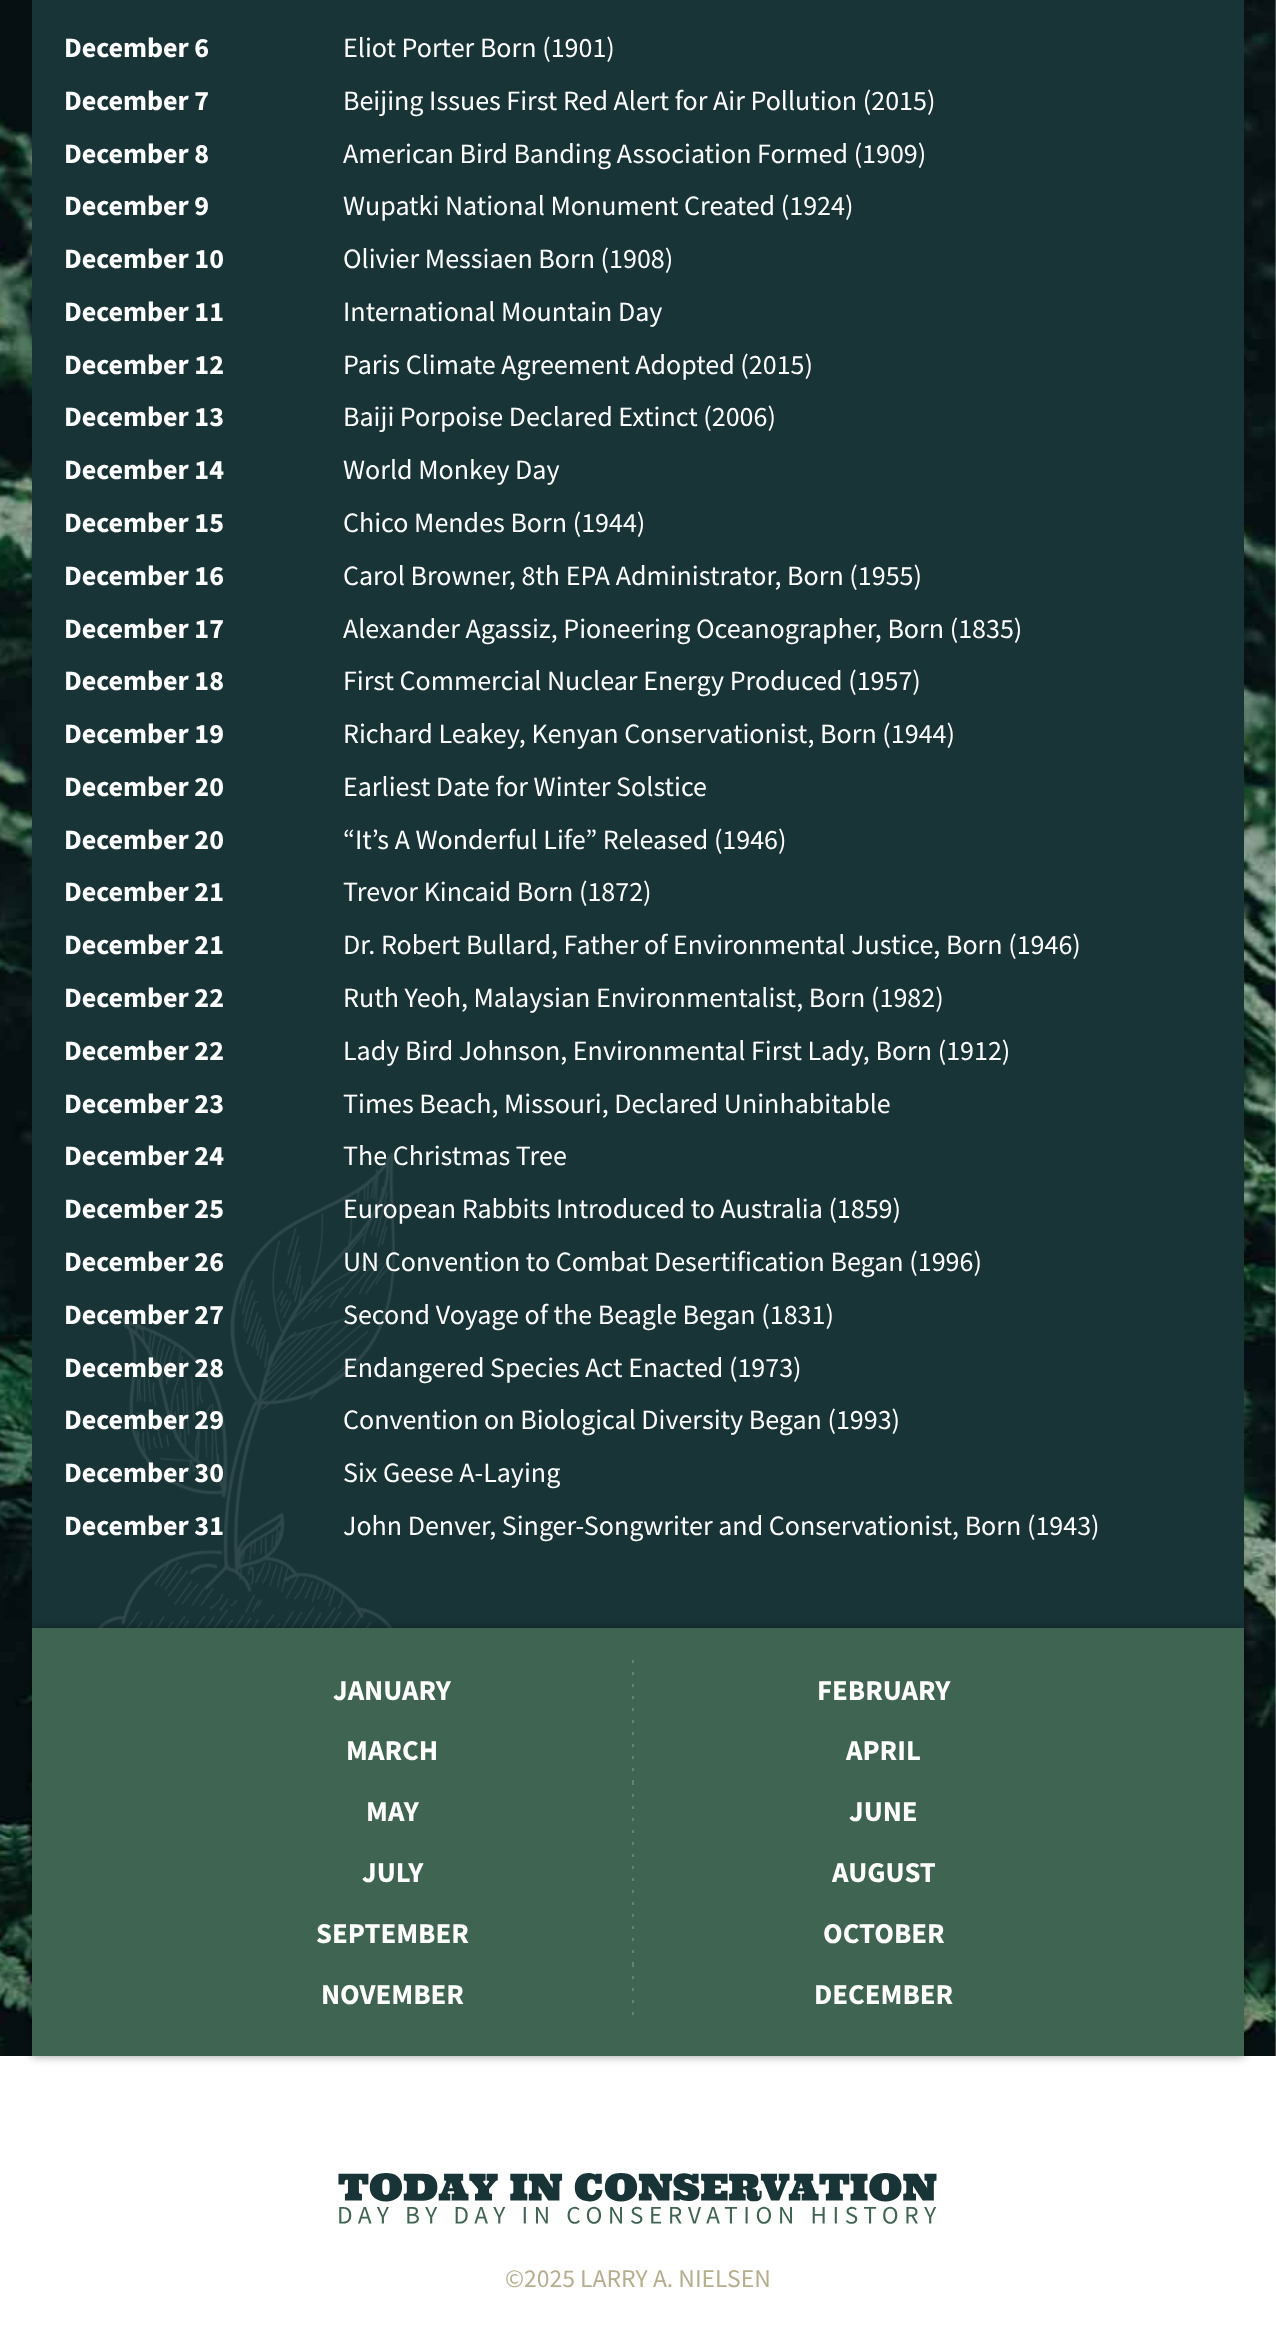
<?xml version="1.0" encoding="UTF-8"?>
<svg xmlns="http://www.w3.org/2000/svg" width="1276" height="2329">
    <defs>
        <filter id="blur1" x="-50%" y="-200%" width="200%" height="500%"><feGaussianBlur stdDeviation="5"/></filter>
    </defs>
    <rect width="100%" height="100%" fill="#FFFFFF"/>
    <image x="0" y="0" width="1276" height="2056" href="img_01.png"/>
    <rect x="32" y="0" width="1212" height="1628" fill="#183437"/>
    <image x="98" y="1152" width="297" height="476" href="img_02.png"/>
    <text x="64" y="57" font-family="Source Sans Pro" font-size="28" font-weight="700" fill="#FFFFFF">December 6</text>
    <text x="343" y="57" font-family="Source Sans Pro" font-size="28" fill="#FFFFFF">Eliot Porter Born (1901)</text>
    <text x="64" y="110" font-family="Source Sans Pro" font-size="28" font-weight="700" fill="#FFFFFF">December 7</text>
    <text x="343" y="110" font-family="Source Sans Pro" font-size="28" fill="#FFFFFF">Beijing Issues First Red Alert for Air Pollution (2015)</text>
    <text x="64" y="163" font-family="Source Sans Pro" font-size="28" font-weight="700" fill="#FFFFFF">December 8</text>
    <text x="343" y="163" font-family="Source Sans Pro" font-size="28" fill="#FFFFFF">American Bird Banding Association Formed (1909)</text>
    <text x="64" y="215" font-family="Source Sans Pro" font-size="28" font-weight="700" fill="#FFFFFF">December 9</text>
    <text x="343" y="215" font-family="Source Sans Pro" font-size="28" fill="#FFFFFF">Wupatki National Monument Created (1924)</text>
    <text x="64" y="268" font-family="Source Sans Pro" font-size="28" font-weight="700" fill="#FFFFFF">December 10</text>
    <text x="343" y="268" font-family="Source Sans Pro" font-size="28" fill="#FFFFFF">Olivier Messiaen Born (1908)</text>
    <text x="64" y="321" font-family="Source Sans Pro" font-size="28" font-weight="700" fill="#FFFFFF">December 11</text>
    <text x="343" y="321" font-family="Source Sans Pro" font-size="28" fill="#FFFFFF">International Mountain Day</text>
    <text x="64" y="374" font-family="Source Sans Pro" font-size="28" font-weight="700" fill="#FFFFFF">December 12</text>
    <text x="343" y="374" font-family="Source Sans Pro" font-size="28" fill="#FFFFFF">Paris Climate Agreement Adopted (2015)</text>
    <text x="64" y="426" font-family="Source Sans Pro" font-size="28" font-weight="700" fill="#FFFFFF">December 13</text>
    <text x="343" y="426" font-family="Source Sans Pro" font-size="28" fill="#FFFFFF">Baiji Porpoise Declared Extinct (2006)</text>
    <text x="64" y="479" font-family="Source Sans Pro" font-size="28" font-weight="700" fill="#FFFFFF">December 14</text>
    <text x="343" y="479" font-family="Source Sans Pro" font-size="28" fill="#FFFFFF">World Monkey Day</text>
    <text x="64" y="532" font-family="Source Sans Pro" font-size="28" font-weight="700" fill="#FFFFFF">December 15</text>
    <text x="343" y="532" font-family="Source Sans Pro" font-size="28" fill="#FFFFFF">Chico Mendes Born (1944)</text>
    <text x="64" y="585" font-family="Source Sans Pro" font-size="28" font-weight="700" fill="#FFFFFF">December 16</text>
    <text x="343" y="585" font-family="Source Sans Pro" font-size="28" fill="#FFFFFF">Carol Browner, 8th EPA Administrator, Born (1955)</text>
    <text x="64" y="638" font-family="Source Sans Pro" font-size="28" font-weight="700" fill="#FFFFFF">December 17</text>
    <text x="343" y="638" font-family="Source Sans Pro" font-size="28" fill="#FFFFFF">Alexander Agassiz, Pioneering Oceanographer, Born (1835)</text>
    <text x="64" y="690" font-family="Source Sans Pro" font-size="28" font-weight="700" fill="#FFFFFF">December 18</text>
    <text x="343" y="690" font-family="Source Sans Pro" font-size="28" fill="#FFFFFF">First Commercial Nuclear Energy Produced (1957)</text>
    <text x="64" y="743" font-family="Source Sans Pro" font-size="28" font-weight="700" fill="#FFFFFF">December 19</text>
    <text x="343" y="743" font-family="Source Sans Pro" font-size="28" fill="#FFFFFF">Richard Leakey, Kenyan Conservationist, Born (1944)</text>
    <text x="64" y="796" font-family="Source Sans Pro" font-size="28" font-weight="700" fill="#FFFFFF">December 20</text>
    <text x="343" y="796" font-family="Source Sans Pro" font-size="28" fill="#FFFFFF">Earliest Date for Winter Solstice</text>
    <text x="64" y="849" font-family="Source Sans Pro" font-size="28" font-weight="700" fill="#FFFFFF">December 20</text>
    <text x="343" y="849" font-family="Source Sans Pro" font-size="28" fill="#FFFFFF">“It’s A Wonderful Life” Released (1946)</text>
    <text x="64" y="901" font-family="Source Sans Pro" font-size="28" font-weight="700" fill="#FFFFFF">December 21</text>
    <text x="343" y="901" font-family="Source Sans Pro" font-size="28" fill="#FFFFFF">Trevor Kincaid Born (1872)</text>
    <text x="64" y="954" font-family="Source Sans Pro" font-size="28" font-weight="700" fill="#FFFFFF">December 21</text>
    <text x="343" y="954" font-family="Source Sans Pro" font-size="28" fill="#FFFFFF">Dr. Robert Bullard, Father of Environmental Justice, Born (1946)</text>
    <text x="64" y="1007" font-family="Source Sans Pro" font-size="28" font-weight="700" fill="#FFFFFF">December 22</text>
    <text x="343" y="1007" font-family="Source Sans Pro" font-size="28" fill="#FFFFFF">Ruth Yeoh, Malaysian Environmentalist, Born (1982)</text>
    <text x="64" y="1060" font-family="Source Sans Pro" font-size="28" font-weight="700" fill="#FFFFFF">December 22</text>
    <text x="343" y="1060" font-family="Source Sans Pro" font-size="28" fill="#FFFFFF">Lady Bird Johnson, Environmental First Lady, Born (1912)</text>
    <text x="64" y="1113" font-family="Source Sans Pro" font-size="28" font-weight="700" fill="#FFFFFF">December 23</text>
    <text x="343" y="1113" font-family="Source Sans Pro" font-size="28" fill="#FFFFFF">Times Beach, Missouri, Declared Uninhabitable</text>
    <text x="64" y="1165" font-family="Source Sans Pro" font-size="28" font-weight="700" fill="#FFFFFF">December 24</text>
    <text x="343" y="1165" font-family="Source Sans Pro" font-size="28" fill="#FFFFFF">The Christmas Tree</text>
    <text x="64" y="1218" font-family="Source Sans Pro" font-size="28" font-weight="700" fill="#FFFFFF">December 25</text>
    <text x="343" y="1218" font-family="Source Sans Pro" font-size="28" fill="#FFFFFF">European Rabbits Introduced to Australia (1859)</text>
    <text x="64" y="1271" font-family="Source Sans Pro" font-size="28" font-weight="700" fill="#FFFFFF">December 26</text>
    <text x="343" y="1271" font-family="Source Sans Pro" font-size="28" fill="#FFFFFF">UN Convention to Combat Desertification Began (1996)</text>
    <text x="64" y="1324" font-family="Source Sans Pro" font-size="28" font-weight="700" fill="#FFFFFF">December 27</text>
    <text x="343" y="1324" font-family="Source Sans Pro" font-size="28" fill="#FFFFFF">Second Voyage of the Beagle Began (1831)</text>
    <text x="64" y="1377" font-family="Source Sans Pro" font-size="28" font-weight="700" fill="#FFFFFF">December 28</text>
    <text x="343" y="1377" font-family="Source Sans Pro" font-size="28" fill="#FFFFFF">Endangered Species Act Enacted (1973)</text>
    <text x="64" y="1429" font-family="Source Sans Pro" font-size="28" font-weight="700" fill="#FFFFFF">December 29</text>
    <text x="343" y="1429" font-family="Source Sans Pro" font-size="28" fill="#FFFFFF">Convention on Biological Diversity Began (1993)</text>
    <text x="64" y="1482" font-family="Source Sans Pro" font-size="28" font-weight="700" fill="#FFFFFF">December 30</text>
    <text x="343" y="1482" font-family="Source Sans Pro" font-size="28" fill="#FFFFFF">Six Geese A-Laying</text>
    <text x="64" y="1535" font-family="Source Sans Pro" font-size="28" font-weight="700" fill="#FFFFFF">December 31</text>
    <text x="343" y="1535" font-family="Source Sans Pro" font-size="28" fill="#FFFFFF">John Denver, Singer-Songwriter and Conservationist, Born (1943)</text>
    <rect x="32" y="1628" width="1212" height="428" fill="#000000" fill-opacity="0.4" filter="url(#blur1)"/>
    <rect x="32" y="1628" width="1212" height="428" fill="#3F6552"/>
    <image x="632" y="1660" width="2" height="51" href="img_03.png"/>
    <text x="333" y="1700" font-family="Source Sans Pro" font-size="28.75" font-weight="700" fill="#FFFFFF">JANUARY</text>
    <text x="817" y="1700" font-family="Source Sans Pro" font-size="28.75" font-weight="700" fill="#FFFFFF">FEBRUARY</text>
    <image x="632" y="1720" width="2" height="62" href="img_04.png"/>
    <text x="346" y="1760" font-family="Source Sans Pro" font-size="28.75" font-weight="700" fill="#FFFFFF">MARCH</text>
    <text x="846" y="1760" font-family="Source Sans Pro" font-size="28.75" font-weight="700" fill="#FFFFFF">APRIL</text>
    <image x="632" y="1782" width="2" height="51" href="img_03.png"/>
    <text x="366" y="1821" font-family="Source Sans Pro" font-size="28.75" font-weight="700" fill="#FFFFFF">MAY</text>
    <text x="849" y="1821" font-family="Source Sans Pro" font-size="28.75" font-weight="700" fill="#FFFFFF">JUNE</text>
    <image x="632" y="1842" width="2" height="51" href="img_03.png"/>
    <text x="362" y="1882" font-family="Source Sans Pro" font-size="28.75" font-weight="700" fill="#FFFFFF">JULY</text>
    <text x="832" y="1882" font-family="Source Sans Pro" font-size="28.75" font-weight="700" fill="#FFFFFF">AUGUST</text>
    <image x="632" y="1902" width="2" height="62" href="img_04.png"/>
    <text x="316" y="1943" font-family="Source Sans Pro" font-size="28.75" font-weight="700" fill="#FFFFFF">SEPTEMBER</text>
    <text x="823" y="1943" font-family="Source Sans Pro" font-size="28.75" font-weight="700" fill="#FFFFFF">OCTOBER</text>
    <image x="632" y="1964" width="2" height="51" href="img_03.png"/>
    <text x="321" y="2004" font-family="Source Sans Pro" font-size="28.75" font-weight="700" fill="#FFFFFF">NOVEMBER</text>
    <text x="814" y="2004" font-family="Source Sans Pro" font-size="28.75" font-weight="700" fill="#FFFFFF">DECEMBER</text>
    <image x="338" y="2173" width="599" height="51" href="img_05.png"/>
    <text x="505" y="2287" font-family="Source Sans Pro" font-size="25.6" fill="#B6AE8E">©2025 LARRY A. NIELSEN</text>
</svg>
